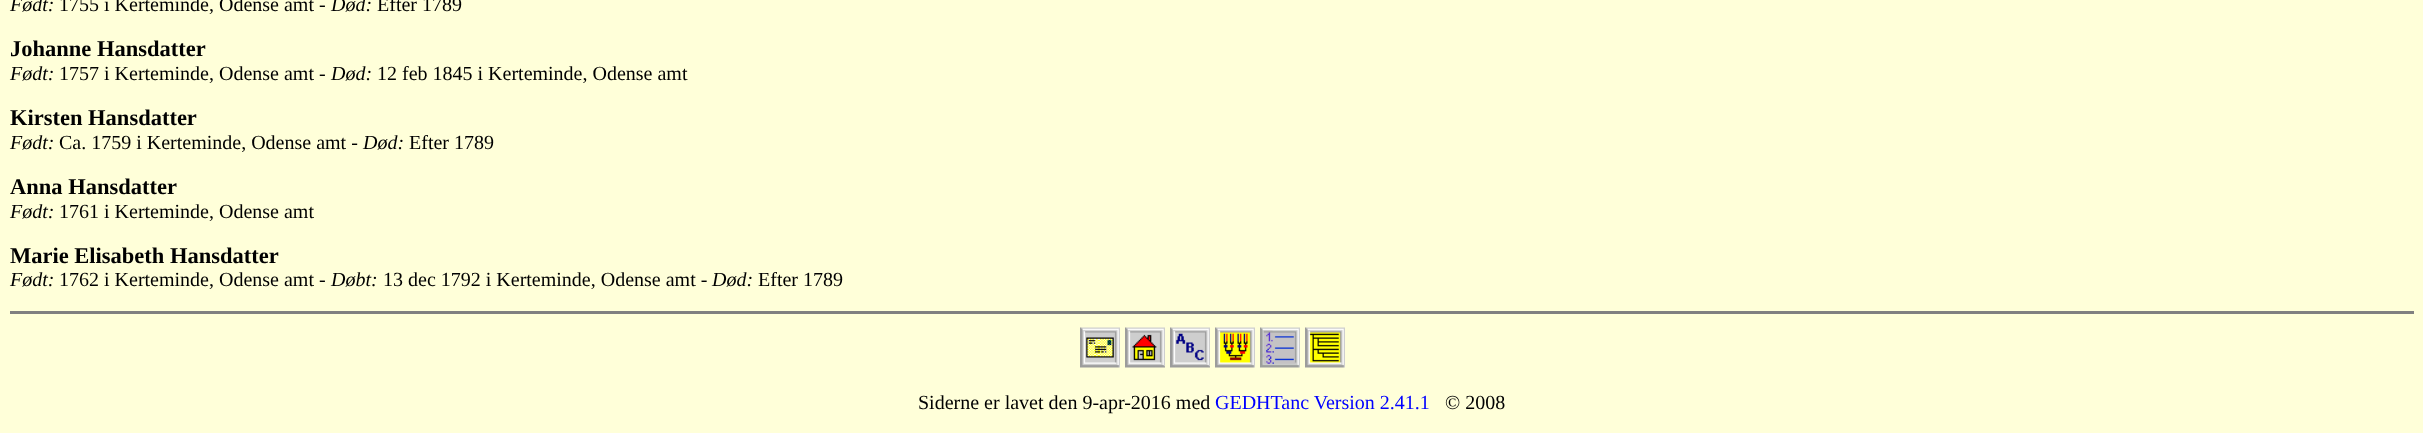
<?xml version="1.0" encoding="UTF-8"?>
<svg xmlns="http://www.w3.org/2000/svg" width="2423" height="433">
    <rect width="100%" height="100%" fill="#FFFFD9"/>
    <text x="10" y="11" font-family="Liberation Serif" font-size="20" font-style="italic" fill="#000000">Født:</text>
    <text x="59" y="11" font-family="Liberation Serif" font-size="20" fill="#000000">1755 i Kerteminde, Odense amt -</text>
    <text x="331" y="11" font-family="Liberation Serif" font-size="20" font-style="italic" fill="#000000">Død:</text>
    <text x="377" y="11" font-family="Liberation Serif" font-size="20" fill="#000000">Efter 1789</text>
    <text x="10" y="56" font-family="Liberation Serif" font-size="22.5" font-weight="700" fill="#000000">Johanne Hansdatter</text>
    <text x="10" y="80" font-family="Liberation Serif" font-size="20" font-style="italic" fill="#000000">Født:</text>
    <text x="59" y="80" font-family="Liberation Serif" font-size="20" fill="#000000">1757 i Kerteminde, Odense amt -</text>
    <text x="331" y="80" font-family="Liberation Serif" font-size="20" font-style="italic" fill="#000000">Død:</text>
    <text x="377" y="80" font-family="Liberation Serif" font-size="20" fill="#000000">12 feb 1845 i Kerteminde, Odense amt</text>
    <text x="10" y="125" font-family="Liberation Serif" font-size="22.5" font-weight="700" fill="#000000">Kirsten Hansdatter</text>
    <text x="10" y="149" font-family="Liberation Serif" font-size="20" font-style="italic" fill="#000000">Født:</text>
    <text x="59" y="149" font-family="Liberation Serif" font-size="20" fill="#000000">Ca. 1759 i Kerteminde, Odense amt -</text>
    <text x="363" y="149" font-family="Liberation Serif" font-size="20" font-style="italic" fill="#000000">Død:</text>
    <text x="409" y="149" font-family="Liberation Serif" font-size="20" fill="#000000">Efter 1789</text>
    <text x="10" y="194" font-family="Liberation Serif" font-size="22.5" font-weight="700" fill="#000000">Anna Hansdatter</text>
    <text x="10" y="218" font-family="Liberation Serif" font-size="20" font-style="italic" fill="#000000">Født:</text>
    <text x="59" y="218" font-family="Liberation Serif" font-size="20" fill="#000000">1761 i Kerteminde, Odense amt</text>
    <text x="10" y="263" font-family="Liberation Serif" font-size="22.5" font-weight="700" fill="#000000">Marie Elisabeth Hansdatter</text>
    <text x="10" y="286" font-family="Liberation Serif" font-size="20" font-style="italic" fill="#000000">Født:</text>
    <text x="59" y="286" font-family="Liberation Serif" font-size="20" fill="#000000">1762 i Kerteminde, Odense amt -</text>
    <text x="331" y="286" font-family="Liberation Serif" font-size="20" font-style="italic" fill="#000000">Døbt:</text>
    <text x="383" y="286" font-family="Liberation Serif" font-size="20" fill="#000000">13 dec 1792 i Kerteminde, Odense amt -</text>
    <text x="712" y="286" font-family="Liberation Serif" font-size="20" font-style="italic" fill="#000000">Død:</text>
    <text x="758" y="286" font-family="Liberation Serif" font-size="20" fill="#000000">Efter 1789</text>
    <rect x="10" y="311" width="2404" height="3" fill="#808080"/>
    <image x="1080" y="327" width="40" height="41" href="img_01.png"/>
    <image x="1125" y="327" width="40" height="41" href="img_02.png"/>
    <image x="1170" y="327" width="40" height="41" href="img_03.png"/>
    <image x="1215" y="327" width="40" height="41" href="img_04.png"/>
    <image x="1260" y="327" width="40" height="41" href="img_05.png"/>
    <image x="1305" y="327" width="40" height="41" href="img_06.png"/>
    <text x="918" y="409" font-family="Liberation Serif" font-size="20" fill="#000000">Siderne er lavet den 9-apr-2016 med</text>
    <text x="1215" y="409" font-family="Liberation Serif" font-size="20" fill="#0000FF">GEDHTanc Version 2.41.1</text>
    <text x="1445" y="409" font-family="Liberation Serif" font-size="20" fill="#000000">© 2008</text>
</svg>
